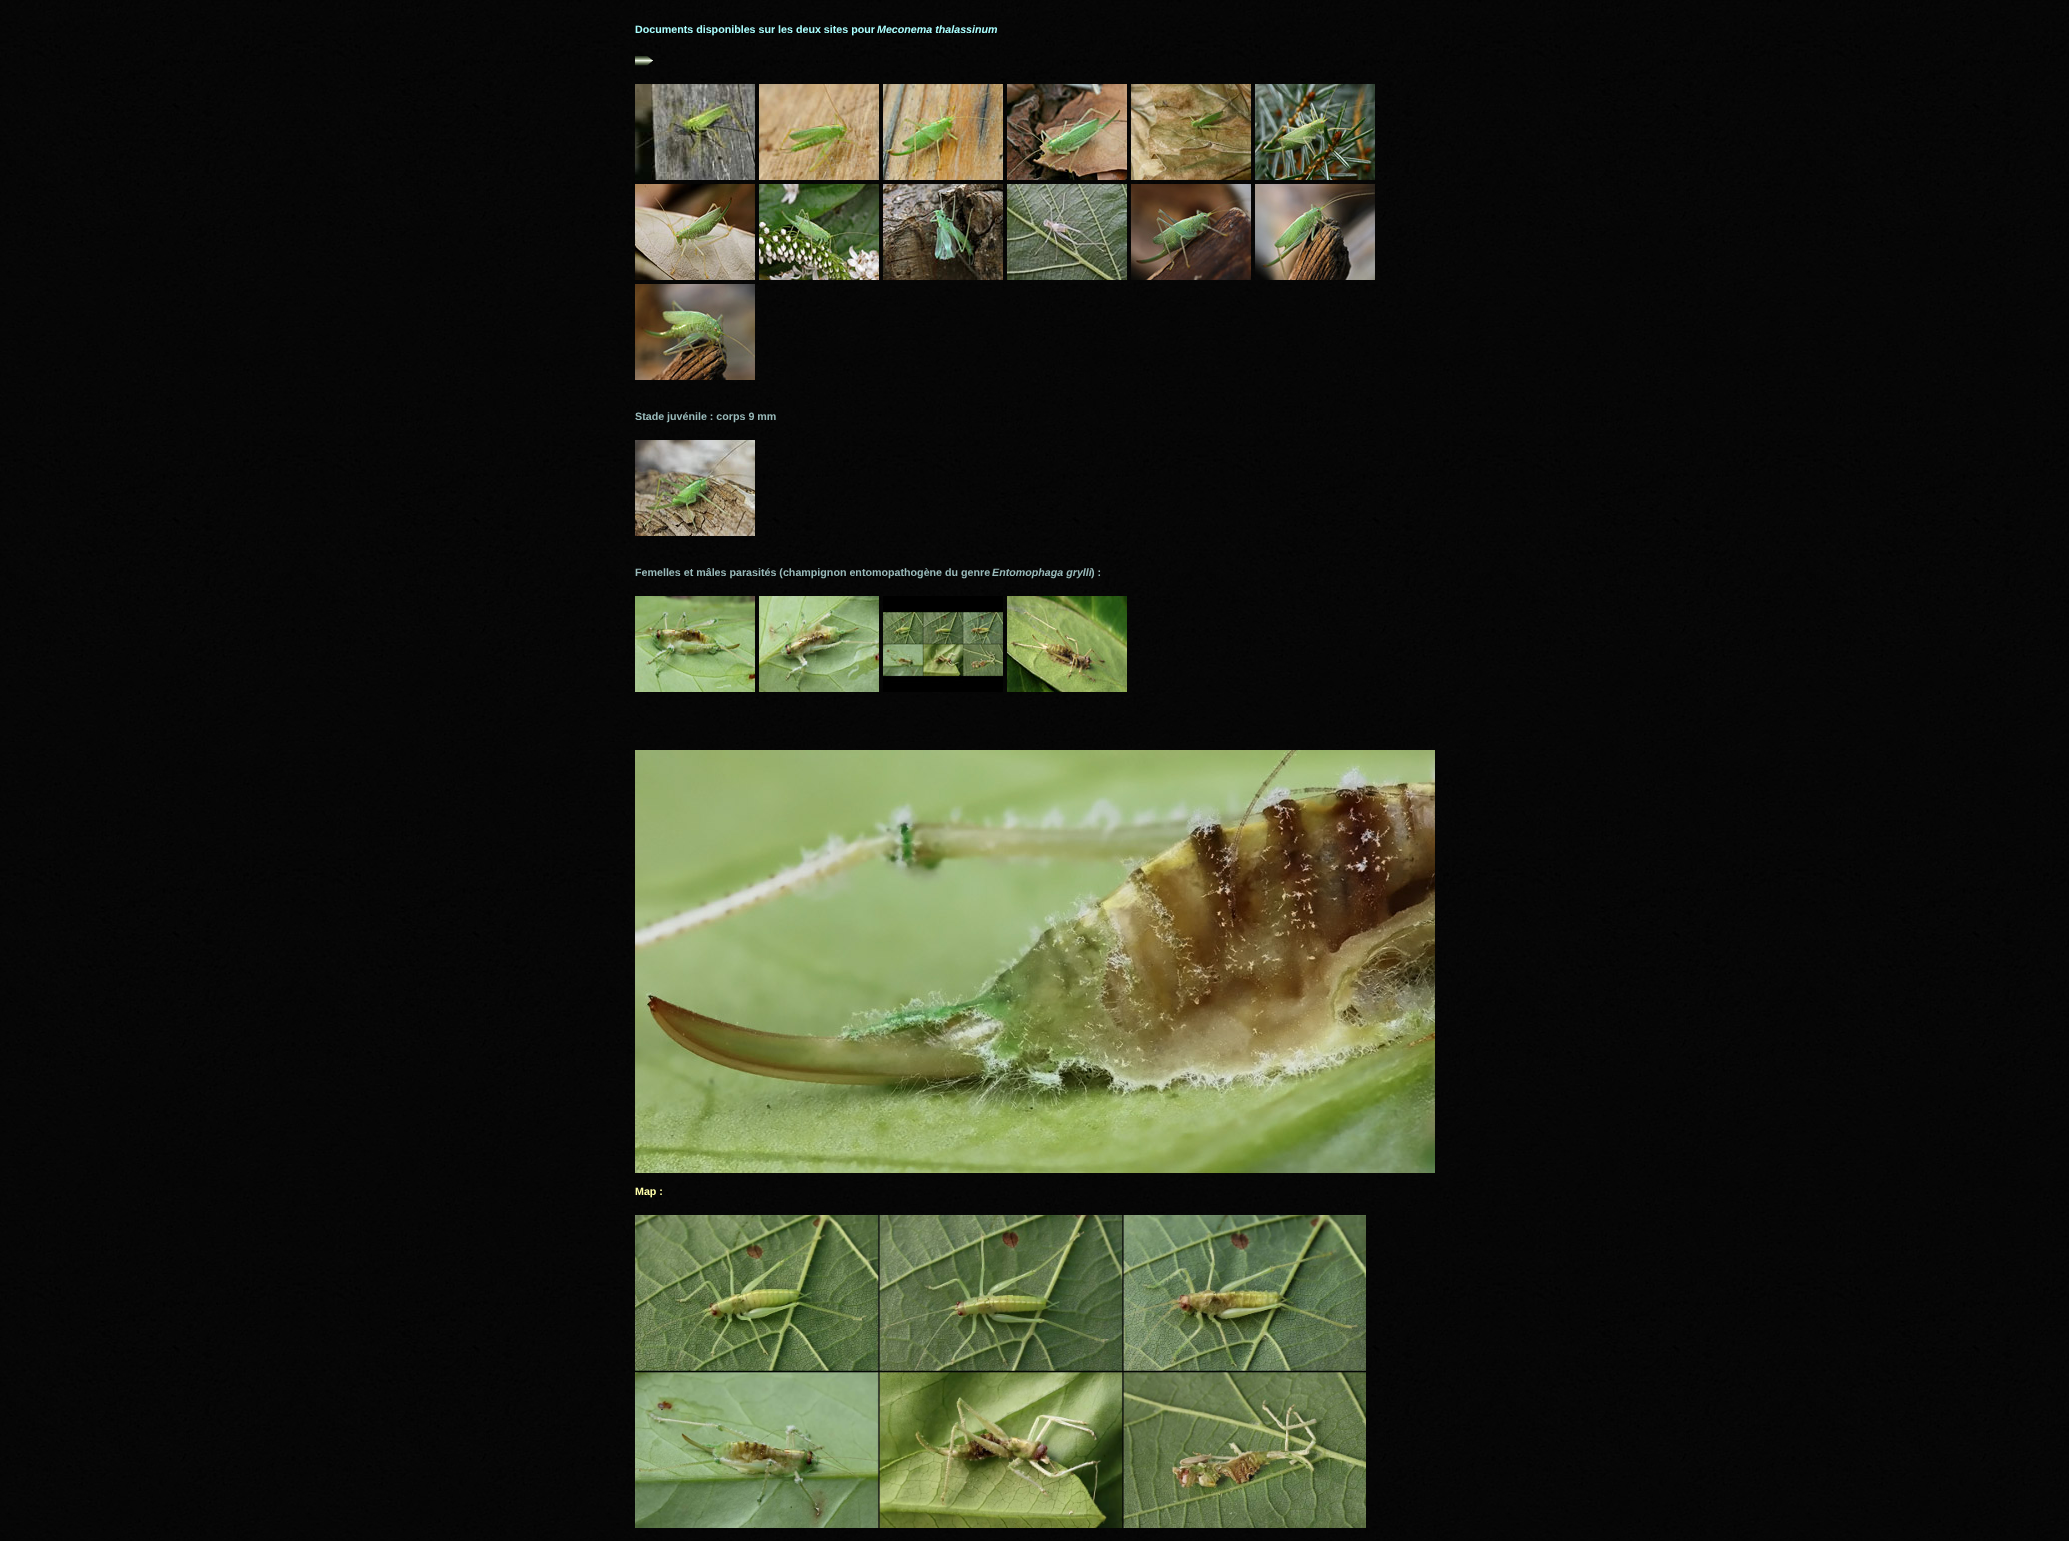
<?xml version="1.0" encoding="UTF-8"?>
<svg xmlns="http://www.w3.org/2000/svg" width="2069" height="1541">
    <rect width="100%" height="100%" fill="#FFFFFF"/>
    <image x="0" y="0" width="2069" height="1541" href="img_01.png"/>
    <text x="635" y="33" font-family="Liberation Sans" font-size="10.7" font-weight="700" fill="#AAFFFF">Documents disponibles sur les deux sites pour</text>
    <text x="877" y="33" font-family="Liberation Sans" font-size="10.7" font-weight="700" font-style="italic" fill="#AAFFFF">Meconema thalassinum</text>
    <image x="635" y="56" width="18" height="10" href="img_02.png"/>
    <image x="635" y="84" width="120" height="96" href="img_03.png"/>
    <image x="759" y="84" width="120" height="96" href="img_04.png"/>
    <image x="883" y="84" width="120" height="96" href="img_05.png"/>
    <image x="1007" y="84" width="120" height="96" href="img_06.png"/>
    <image x="1131" y="84" width="120" height="96" href="img_07.png"/>
    <image x="1255" y="84" width="120" height="96" href="img_08.png"/>
    <image x="635" y="184" width="120" height="96" href="img_09.png"/>
    <image x="759" y="184" width="120" height="96" href="img_10.png"/>
    <image x="883" y="184" width="120" height="96" href="img_11.png"/>
    <image x="1007" y="184" width="120" height="96" href="img_12.png"/>
    <image x="1131" y="184" width="120" height="96" href="img_13.png"/>
    <image x="1255" y="184" width="120" height="96" href="img_14.png"/>
    <image x="635" y="284" width="120" height="96" href="img_15.png"/>
    <text x="635" y="420" font-family="Liberation Sans" font-size="10.7" font-weight="700" fill="#9ABBBB">Stade juvénile : corps 9 mm</text>
    <image x="635" y="440" width="120" height="96" href="img_16.png"/>
    <text x="635" y="576" font-family="Liberation Sans" font-size="10.7" font-weight="700" fill="#9ABBBB">Femelles et mâles parasités (champignon entomopathogène du genre</text>
    <text x="992" y="576" font-family="Liberation Sans" font-size="10.7" font-weight="700" font-style="italic" fill="#9ABBBB">Entomophaga grylli</text>
    <text x="1091" y="576" font-family="Liberation Sans" font-size="10.7" font-weight="700" fill="#9ABBBB">) :</text>
    <image x="635" y="596" width="120" height="96" href="img_17.png"/>
    <image x="759" y="596" width="120" height="96" href="img_18.png"/>
    <image x="883" y="596" width="120" height="96" href="img_19.png"/>
    <image x="1007" y="596" width="120" height="96" href="img_20.png"/>
    <image x="635" y="750" width="800" height="423" href="img_21.png"/>
    <text x="635" y="1195" font-family="Liberation Sans" font-size="10.7" font-weight="700" fill="#FFFFAA">Map :</text>
    <image x="635" y="1215" width="731" height="313" href="img_22.png"/>
</svg>
